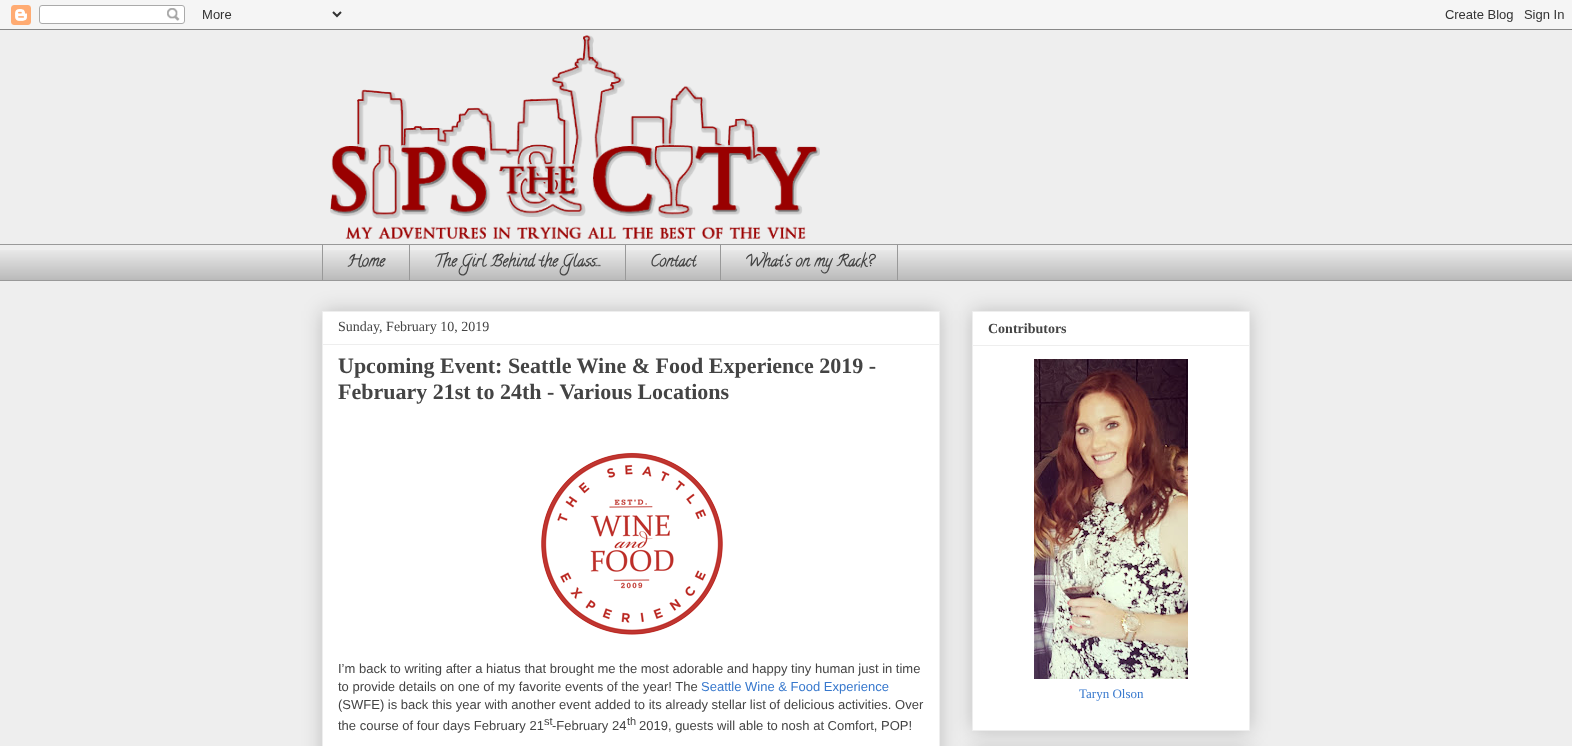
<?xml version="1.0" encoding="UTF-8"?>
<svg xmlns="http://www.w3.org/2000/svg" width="1572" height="746">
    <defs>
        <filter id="blur1" x="-50%" y="-200%" width="200%" height="500%"><feGaussianBlur stdDeviation="10"/></filter>
    </defs>
    <rect width="100%" height="100%" fill="#EEEEEE"/>
    <image x="0" y="0" width="1572" height="30" href="img_01.png"/>
    <image x="330" y="35" width="490" height="204" href="img_02.png"/>
    <image x="0" y="250" width="1572" height="30" href="img_03.png"/>
    <rect x="0" y="244" width="1572" height="1" fill="#999999"/>
    <rect x="322" y="244" width="1" height="37" fill="#999999"/>
    <text x="347" y="266" font-family="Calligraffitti" font-size="16" font-weight="700" fill="#444444">Home</text>
    <rect x="409" y="244" width="1" height="37" fill="#999999"/>
    <text x="434" y="266" font-family="Calligraffitti" font-size="16" font-weight="700" fill="#444444">The Girl Behind the Glass...</text>
    <rect x="625" y="244" width="1" height="37" fill="#999999"/>
    <text x="650" y="266" font-family="Calligraffitti" font-size="16" font-weight="700" fill="#444444">Contact</text>
    <rect x="720.5" y="244.5" width="177" height="36" fill="none" stroke="#999999"/>
    <text x="745" y="266" font-family="Calligraffitti" font-size="16" font-weight="700" fill="#444444">What's on my Rack?</text>
    <rect x="0" y="280" width="1572" height="1" fill="#999999"/>
    <rect x="322" y="311" width="618" height="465" fill="#000000" fill-opacity="0.2" filter="url(#blur1)"/>
    <rect x="322.5" y="311.5" width="617" height="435" fill="#FFFFFF" stroke="#EEEEEE"/>
    <text x="338" y="331" font-family="Liberation Serif" font-size="14" fill="#444444">Sunday, February 10, 2019</text>
    <rect x="323" y="344" width="616" height="1" fill="#EEEEEE"/>
    <text font-family="Liberation Serif" font-size="22" font-weight="700" fill="#444444">
        <tspan x="338" y="373">Upcoming Event: Seattle Wine &amp; Food Experience 2019 -</tspan>
        <tspan x="338" y="399">February 21st to 24th - Various Locations</tspan>
    </text>
    <image x="541" y="452" width="182" height="183" href="img_04.png"/>
    <text font-family="Liberation Sans" font-size="13" fill="#444444">
        <tspan x="338" y="673">I’m back to writing after a hiatus that brought me the most adorable and happy tiny human just in time</tspan>
        <tspan x="338" y="691">to provide details on one of my favorite events of the year! The</tspan>
    </text>
    <text x="701" y="691" font-family="Liberation Sans" font-size="13" fill="#3778CD">Seattle Wine &amp; Food Experience</text>
    <text font-family="Liberation Sans" font-size="13" fill="#444444">
        <tspan x="338" y="709">(SWFE) is back this year with another event added to its already stellar list of delicious activities. Over</tspan>
        <tspan x="338" y="730">the course of four days February 21</tspan>
    </text>
    <text x="544" y="725" font-family="Liberation Sans" font-size="11" fill="#444444">st</text>
    <text x="552" y="730" font-family="Liberation Sans" font-size="13" fill="#444444">-February 24</text>
    <text x="627" y="725" font-family="Liberation Sans" font-size="11" fill="#444444">th</text>
    <text x="639" y="730" font-family="Liberation Sans" font-size="13" fill="#444444">2019, guests will able to nosh at Comfort, POP!</text>
    <rect x="972" y="311" width="278" height="420" fill="#000000" fill-opacity="0.2" filter="url(#blur1)"/>
    <rect x="972.5" y="311.5" width="277" height="419" fill="#FFFFFF" stroke="#EEEEEE"/>
    <text x="988" y="333" font-family="Liberation Serif" font-size="14" font-weight="700" fill="#444444">Contributors</text>
    <rect x="973" y="345" width="276" height="1" fill="#EEEEEE"/>
    <image x="1034" y="359" width="154" height="320" href="img_05.png"/>
    <text x="1079" y="698" font-family="Liberation Serif" font-size="13" fill="#3778CD">Taryn Olson</text>
    <rect x="972" y="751" width="278" height="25" fill="#000000" fill-opacity="0.2" filter="url(#blur1)"/>
</svg>
